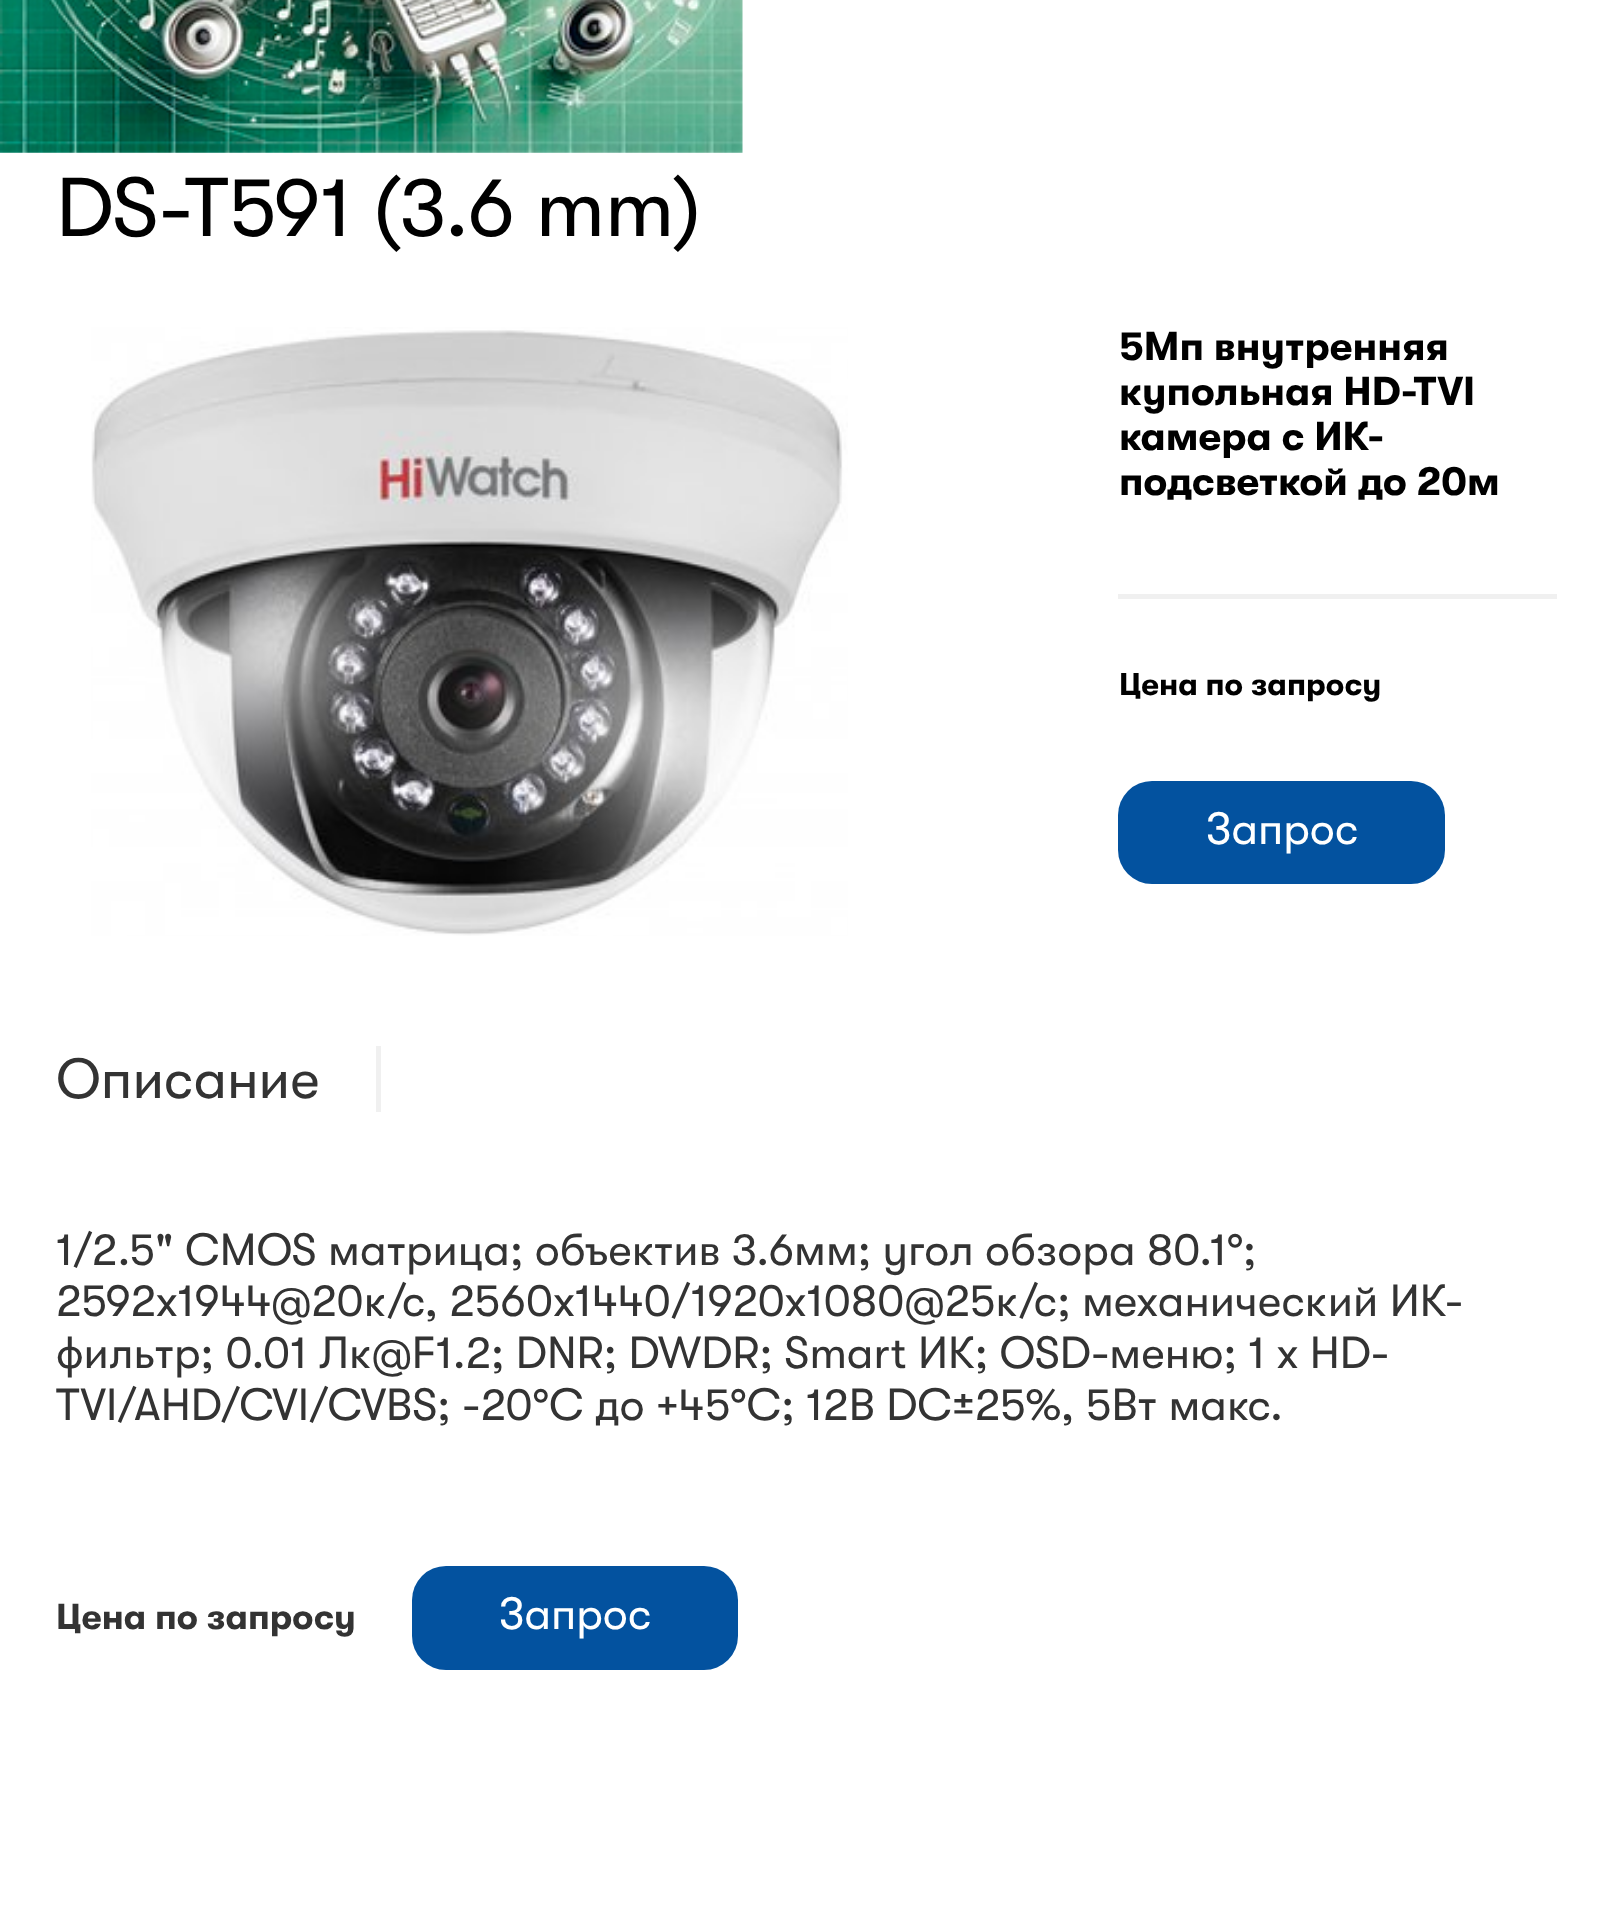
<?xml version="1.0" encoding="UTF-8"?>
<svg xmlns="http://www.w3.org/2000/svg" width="1613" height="1909">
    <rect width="100%" height="100%" fill="#FFFFFF"/>
    <image x="0" y="0" width="743" height="153" href="img_01.png"/>
    <text x="56" y="236" font-family="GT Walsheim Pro" font-size="83.25" fill="#000000">DS-T591 (3.6 mm)</text>
    <image x="91" y="327" width="757" height="609" href="img_02.png"/>
    <rect x="1118" y="594" width="439" height="5" fill="#F0F0F0"/>
    <text font-family="GT Walsheim Pro" font-size="40.5" font-weight="700" fill="#000000">
        <tspan x="1119" y="360">5Мп внутренняя</tspan>
        <tspan x="1119" y="405">купольная HD-TVI</tspan>
        <tspan x="1119" y="450">камера с ИК-</tspan>
        <tspan x="1119" y="495">подсветкой до 20м</tspan>
    </text>
    <text x="1119" y="695" font-family="GT Walsheim Pro" font-size="31.5" font-weight="700" fill="#000000">Цена по запросу</text>
    <rect x="1118" y="781" width="327" height="103" rx="34" fill="#03529F"/>
    <text x="1206" y="844" font-family="GT Walsheim Pro" font-size="45" fill="#FFFFFF">Запрос</text>
    <rect x="376" y="1046" width="5" height="66" fill="#F0F0F0"/>
    <text x="56" y="1098" font-family="GT Walsheim Pro" font-size="56.25" fill="#333333">Описание</text>
    <text font-family="GT Walsheim Pro" font-size="45" fill="#333333">
        <tspan x="56" y="1265">1/2.5" CMOS матрица; объектив 3.6мм; угол обзора 80.1°;</tspan>
        <tspan x="56" y="1316">2592x1944@20к/с, 2560x1440/1920x1080@25к/с; механический ИК-</tspan>
        <tspan x="56" y="1368">фильтр; 0.01 Лк@F1.2; DNR; DWDR; Smart ИК; OSD-меню; 1 х HD-</tspan>
        <tspan x="56" y="1420">TVI/AHD/CVI/CVBS; -20°С до +45°С; 12В DC±25%, 5Вт макс.</tspan>
    </text>
    <text x="56" y="1629" font-family="GT Walsheim Pro" font-size="36" font-weight="700" fill="#333333">Цена по запросу</text>
    <rect x="412" y="1566" width="326" height="104" rx="34" fill="#03529F"/>
    <text x="499" y="1629" font-family="GT Walsheim Pro" font-size="45" fill="#FFFFFF">Запрос</text>
</svg>
